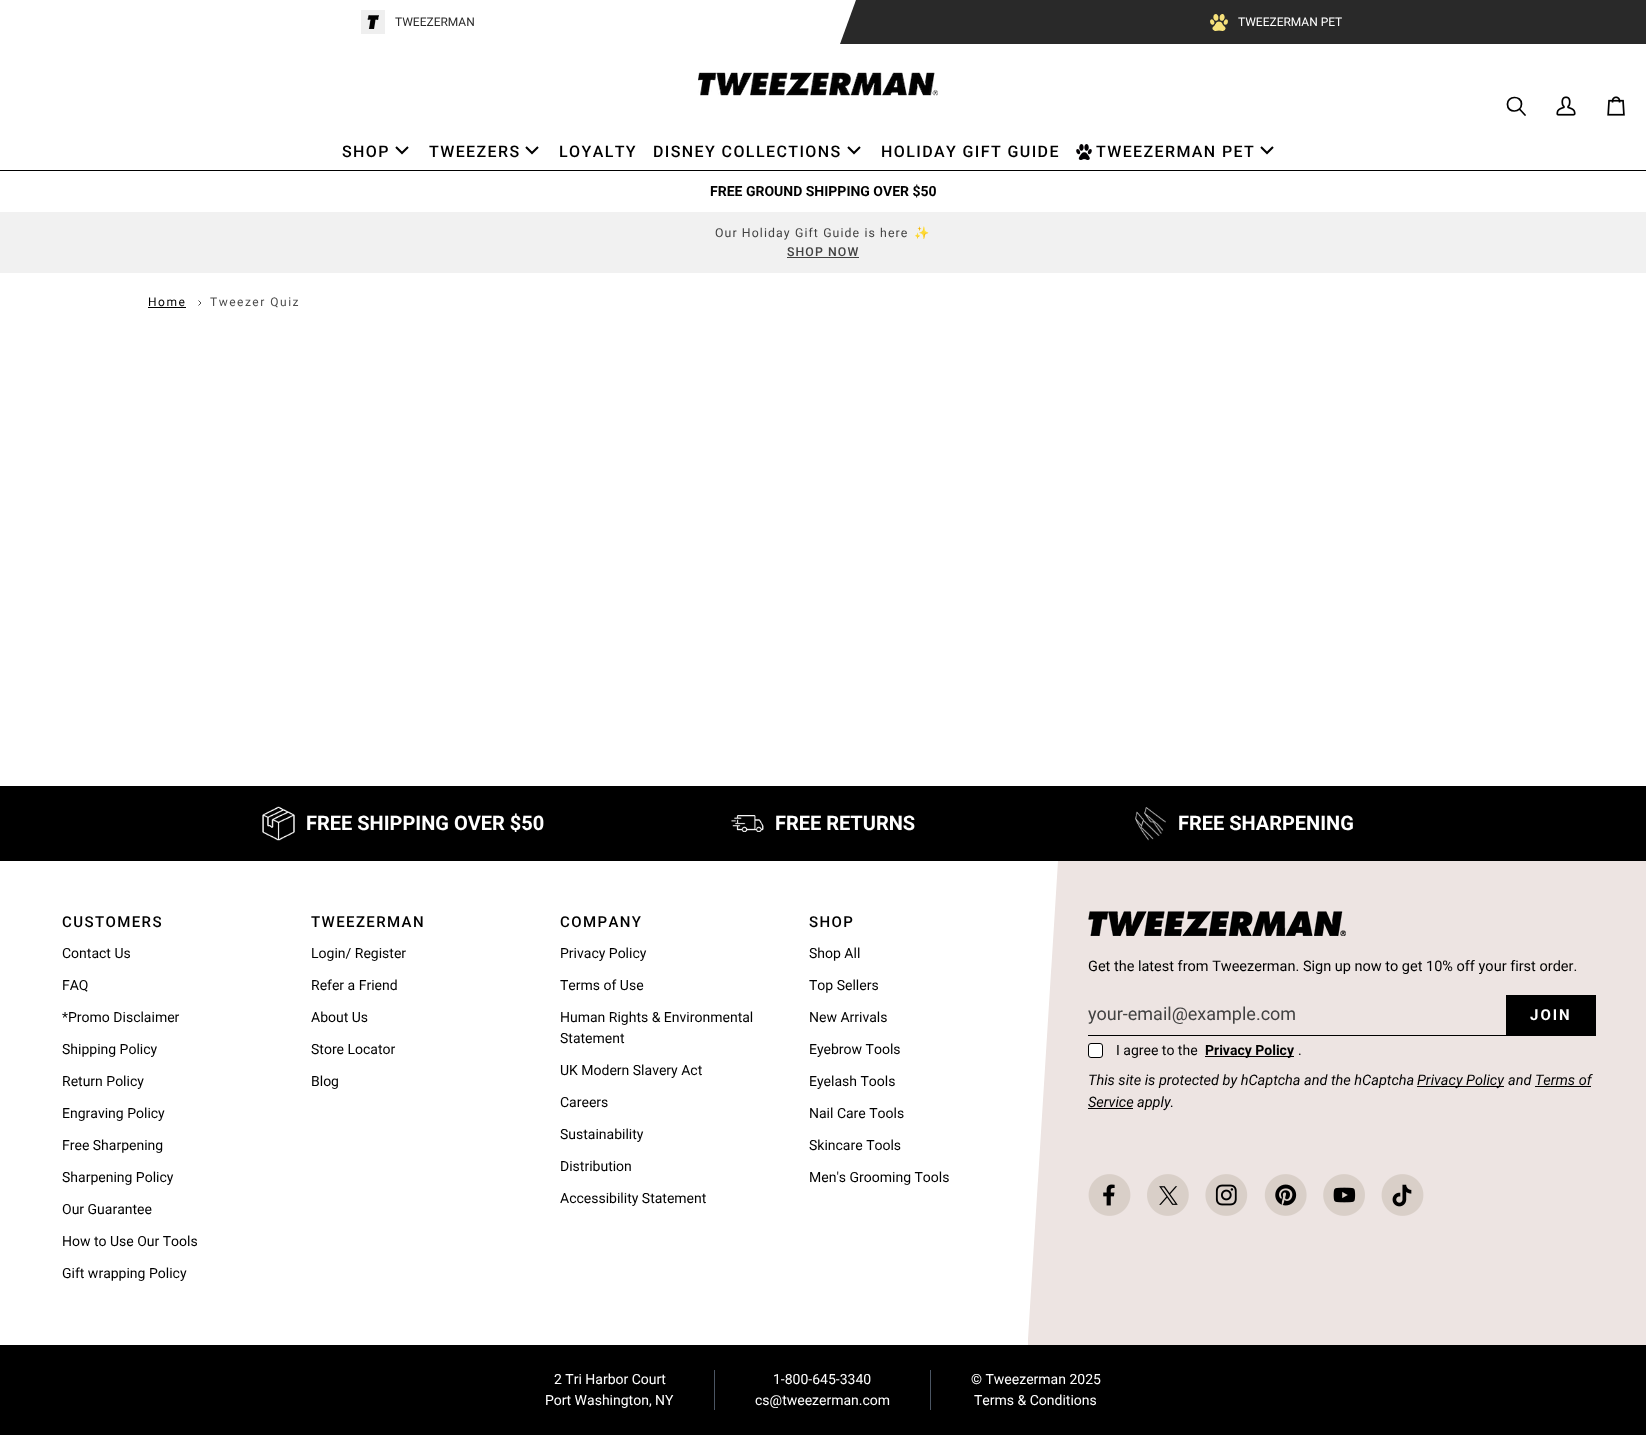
<?xml version="1.0" encoding="UTF-8"?>
<svg xmlns="http://www.w3.org/2000/svg" width="1646" height="1435">
    <style>*{font-kerning:none!important;font-variant-ligatures:none!important}</style>
    <rect width="100%" height="100%" fill="#FFFFFF"/>
    <image x="361" y="10" width="24" height="24" href="img_01.png"/>
    <text x="395" y="26" font-family="Roboto" font-size="12" fill="#292929">TWEEZERMAN</text>
    <path d="M 856 0 H 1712 L 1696 44 H 840 Z" fill="#292929"/>
    <image x="1210" y="14" width="18" height="17" href="img_02.png"/>
    <text x="1238" y="26" font-family="Roboto" font-size="12" fill="#FFFFFF">TWEEZERMAN PET</text>
    <rect x="0" y="170" width="1646" height="1" fill="#000000"/>
    <path d="M 1521.5 104 C 1521.5 113 1507.5 113.5 1507.5 104.5 C 1507 95.5 1521.5 95 1521.5 104 Z M 1525 115 L 1519.5 109 Z" fill="none" stroke="#000000" stroke-width="1.7" stroke-linecap="round" stroke-linejoin="round"/>
    <image x="1556" y="96" width="20" height="20" href="img_03.png"/>
    <image x="1607" y="96" width="18" height="20" href="img_04.png"/>
    <image x="698" y="72" width="240" height="24" href="img_05.png"/>
    <text x="342" y="157" font-family="Roboto" font-size="16" font-weight="500" letter-spacing="1.4" fill="#000000">SHOP</text>
    <path d="M 396 147 L 402 153 L 408 147" fill="none" stroke="#000000" stroke-width="2"/>
    <text x="429" y="157" font-family="Roboto" font-size="16" font-weight="500" letter-spacing="1.4" fill="#000000">TWEEZERS</text>
    <path d="M 526 147 L 532 153 L 538 147" fill="none" stroke="#000000" stroke-width="2"/>
    <text x="559" y="157" font-family="Roboto" font-size="16" font-weight="500" letter-spacing="1.4" fill="#000000">LOYALTY</text>
    <text x="653" y="157" font-family="Roboto" font-size="16" font-weight="500" letter-spacing="1.4" fill="#000000">DISNEY COLLECTIONS</text>
    <path d="M 848 147 L 854 153 L 860 147" fill="none" stroke="#000000" stroke-width="2"/>
    <text x="881" y="157" font-family="Roboto" font-size="16" font-weight="500" letter-spacing="1.4" fill="#000000">HOLIDAY GIFT GUIDE</text>
    <image x="1076" y="144" width="16" height="16" href="img_06.png"/>
    <text x="1096" y="157" font-family="Roboto" font-size="16" font-weight="500" letter-spacing="1.4" fill="#000000">TWEEZERMAN PET</text>
    <path d="M 1261 147 L 1267 153 L 1273 147" fill="none" stroke="#000000" stroke-width="2"/>
    <text x="710" y="196" font-family="Roboto" font-size="14" font-weight="700" fill="#000000">FREE GROUND SHIPPING OVER $50</text>
    <rect x="0" y="212" width="1646" height="61" fill="#F1F1F1"/>
    <text x="715" y="237" font-family="Roboto" font-size="12.3" letter-spacing="1.1" fill="#424242">Our Holiday Gift Guide is here</text>
    <text x="914" y="237" font-family="Noto Color Emoji" font-size="12.3" letter-spacing="1.1" fill="#424242">✨</text>
    <text x="787" y="256" font-family="Roboto" font-size="12.3" font-weight="500" letter-spacing="1.1" fill="#424242">SHOP NOW</text>
    <rect x="787" y="257" width="72" height="1" fill="#424242"/>
    <text x="148" y="306" font-family="Roboto" font-size="12" letter-spacing="1.5" fill="#000000">Home</text>
    <rect x="148" y="307" width="38" height="1" fill="#000000"/>
    <path d="M 198.5 305.5 L 201 303 L 198.5 300.5" fill="none" stroke="#000000" stroke-width="0.7"/>
    <text x="210" y="306" font-family="Roboto" font-size="12" letter-spacing="1.5" fill="#4D4D4D">Tweezer Quiz</text>
    <rect x="0" y="786" width="1646" height="75" fill="#000000"/>
    <image x="262" y="806" width="33" height="35" href="img_07.png"/>
    <text x="306" y="830" font-family="Roboto" font-size="20" font-weight="700" fill="#FFFFFF">FREE SHIPPING OVER $50</text>
    <image x="731" y="815" width="33" height="17" href="img_08.png"/>
    <text x="775" y="830" font-family="Roboto" font-size="20" font-weight="700" fill="#FFFFFF">FREE RETURNS</text>
    <image x="1135" y="807" width="31" height="34" href="img_09.png"/>
    <text x="1178" y="830" font-family="Roboto" font-size="20" font-weight="700" fill="#FFFFFF">FREE SHARPENING</text>
    <text x="62" y="927" font-family="Roboto" font-size="15" font-weight="500" letter-spacing="1.4" fill="#000000">CUSTOMERS</text>
    <text x="62" y="958" font-family="Roboto" font-size="14" fill="#000000">Contact Us</text>
    <text x="62" y="990" font-family="Roboto" font-size="14" fill="#000000">FAQ</text>
    <text x="62" y="1022" font-family="Roboto" font-size="14" fill="#000000">*Promo Disclaimer</text>
    <text x="62" y="1054" font-family="Roboto" font-size="14" fill="#000000">Shipping Policy</text>
    <text x="62" y="1086" font-family="Roboto" font-size="14" fill="#000000">Return Policy</text>
    <text x="62" y="1118" font-family="Roboto" font-size="14" fill="#000000">Engraving Policy</text>
    <text x="62" y="1150" font-family="Roboto" font-size="14" fill="#000000">Free Sharpening</text>
    <text x="62" y="1182" font-family="Roboto" font-size="14" fill="#000000">Sharpening Policy</text>
    <text x="62" y="1214" font-family="Roboto" font-size="14" fill="#000000">Our Guarantee</text>
    <text x="62" y="1246" font-family="Roboto" font-size="14" fill="#000000">How to Use Our Tools</text>
    <text x="62" y="1278" font-family="Roboto" font-size="14" fill="#000000">Gift wrapping Policy</text>
    <text x="311" y="927" font-family="Roboto" font-size="15" font-weight="500" letter-spacing="1.4" fill="#000000">TWEEZERMAN</text>
    <text x="311" y="958" font-family="Roboto" font-size="14" fill="#000000">Login/ Register</text>
    <text x="311" y="990" font-family="Roboto" font-size="14" fill="#000000">Refer a Friend</text>
    <text x="311" y="1022" font-family="Roboto" font-size="14" fill="#000000">About Us</text>
    <text x="311" y="1054" font-family="Roboto" font-size="14" fill="#000000">Store Locator</text>
    <text x="311" y="1086" font-family="Roboto" font-size="14" fill="#000000">Blog</text>
    <text x="560" y="927" font-family="Roboto" font-size="15" font-weight="500" letter-spacing="1.4" fill="#000000">COMPANY</text>
    <text x="560" y="958" font-family="Roboto" font-size="14" fill="#000000">Privacy Policy</text>
    <text x="560" y="990" font-family="Roboto" font-size="14" fill="#000000">Terms of Use</text>
    <text font-family="Roboto" font-size="14" fill="#000000">
        <tspan x="560" y="1022">Human Rights &amp; Environmental</tspan>
        <tspan x="560" y="1043">Statement</tspan>
    </text>
    <text x="560" y="1075" font-family="Roboto" font-size="14" fill="#000000">UK Modern Slavery Act</text>
    <text x="560" y="1107" font-family="Roboto" font-size="14" fill="#000000">Careers</text>
    <text x="560" y="1139" font-family="Roboto" font-size="14" fill="#000000">Sustainability</text>
    <text x="560" y="1171" font-family="Roboto" font-size="14" fill="#000000">Distribution</text>
    <text x="560" y="1203" font-family="Roboto" font-size="14" fill="#000000">Accessibility Statement</text>
    <text x="809" y="927" font-family="Roboto" font-size="15" font-weight="500" letter-spacing="1.4" fill="#000000">SHOP</text>
    <text x="809" y="958" font-family="Roboto" font-size="14" fill="#000000">Shop All</text>
    <text x="809" y="990" font-family="Roboto" font-size="14" fill="#000000">Top Sellers</text>
    <text x="809" y="1022" font-family="Roboto" font-size="14" fill="#000000">New Arrivals</text>
    <text x="809" y="1054" font-family="Roboto" font-size="14" fill="#000000">Eyebrow Tools</text>
    <text x="809" y="1086" font-family="Roboto" font-size="14" fill="#000000">Eyelash Tools</text>
    <text x="809" y="1118" font-family="Roboto" font-size="14" fill="#000000">Nail Care Tools</text>
    <text x="809" y="1150" font-family="Roboto" font-size="14" fill="#000000">Skincare Tools</text>
    <text x="809" y="1182" font-family="Roboto" font-size="14" fill="#000000">Men's Grooming Tools</text>
    <path d="M 1028 1345 H 1646 V 861 H 1058 L 1028 1339 Z" fill="#EDE4E2"/>
    <image x="1088" y="911" width="258" height="25" href="img_10.png"/>
    <text x="1088" y="971" font-family="Roboto" font-size="14.5" fill="#000000">Get the latest from Tweezerman. Sign up now to get 10% off your first order.</text>
    <rect x="1088" y="1035" width="508" height="1" fill="#000000"/>
    <text x="1088" y="1020" font-family="Roboto" font-size="18" fill="#424242">your-email@example.com</text>
    <rect x="1506" y="995" width="90" height="40" fill="#000000"/>
    <text x="1530" y="1020" font-family="Roboto" font-size="15" font-weight="700" letter-spacing="2" fill="#FFFFFF">JOIN</text>
    <rect x="1088.5" y="1043.5" width="14" height="14" rx="2.5" fill="#FFFFFF" stroke="#000000"/>
    <text x="1116" y="1055" font-family="Roboto" font-size="14" fill="#000000">I agree to the</text>
    <rect x="1205" y="1056" width="89" height="1" fill="#000000"/>
    <text x="1205" y="1055" font-family="Roboto" font-size="14" font-weight="700" fill="#000000">Privacy Policy</text>
    <text x="1298" y="1055" font-family="Roboto" font-size="14" fill="#000000">.</text>
    <text x="1088" y="1085" font-family="Roboto" font-size="14.5" font-style="italic" fill="#000000">This site is protected by hCaptcha and the hCaptcha</text>
    <rect x="1417" y="1086" width="87" height="1" fill="#000000"/>
    <text x="1417" y="1085" font-family="Roboto" font-size="14.5" font-style="italic" fill="#000000">Privacy Policy</text>
    <text x="1508" y="1085" font-family="Roboto" font-size="14.5" font-style="italic" fill="#000000">and Terms of</text>
    <text x="1088" y="1107" font-family="Roboto" font-size="14.5" font-style="italic" fill="#000000">Service</text>
    <rect x="1535" y="1086" width="56" height="1" fill="#000000"/>
    <rect x="1088" y="1108" width="45" height="1" fill="#000000"/>
    <text x="1137" y="1107" font-family="Roboto" font-size="14.5" font-style="italic" fill="#000000">apply.</text>
    <image x="1088" y="1174" width="43" height="42" href="img_11.png"/>
    <image x="1147" y="1174" width="42" height="42" href="img_12.png"/>
    <image x="1205" y="1174" width="43" height="42" href="img_13.png"/>
    <image x="1264" y="1174" width="43" height="42" href="img_14.png"/>
    <image x="1323" y="1174" width="42" height="42" href="img_15.png"/>
    <image x="1381" y="1174" width="43" height="42" href="img_16.png"/>
    <rect x="0" y="1345" width="1646" height="90" fill="#000000"/>
    <text x="554" y="1384" font-family="Roboto" font-size="14" fill="#FFFFFF">2 Tri Harbor Court</text>
    <text x="545" y="1405" font-family="Roboto" font-size="14" fill="#FFFFFF">Port Washington, NY</text>
    <rect x="714" y="1370" width="1" height="40" fill="#4B5563"/>
    <text x="773" y="1384" font-family="Roboto" font-size="14" fill="#FFFFFF">1-800-645-3340</text>
    <text x="755" y="1405" font-family="Roboto" font-size="14" fill="#FFFFFF">cs@tweezerman.com</text>
    <rect x="930" y="1370" width="1" height="40" fill="#4B5563"/>
    <text x="971" y="1384" font-family="Roboto" font-size="14" fill="#FFFFFF">© Tweezerman 2025</text>
    <text x="974" y="1405" font-family="Roboto" font-size="14" fill="#FFFFFF">Terms &amp; Conditions</text>
</svg>
